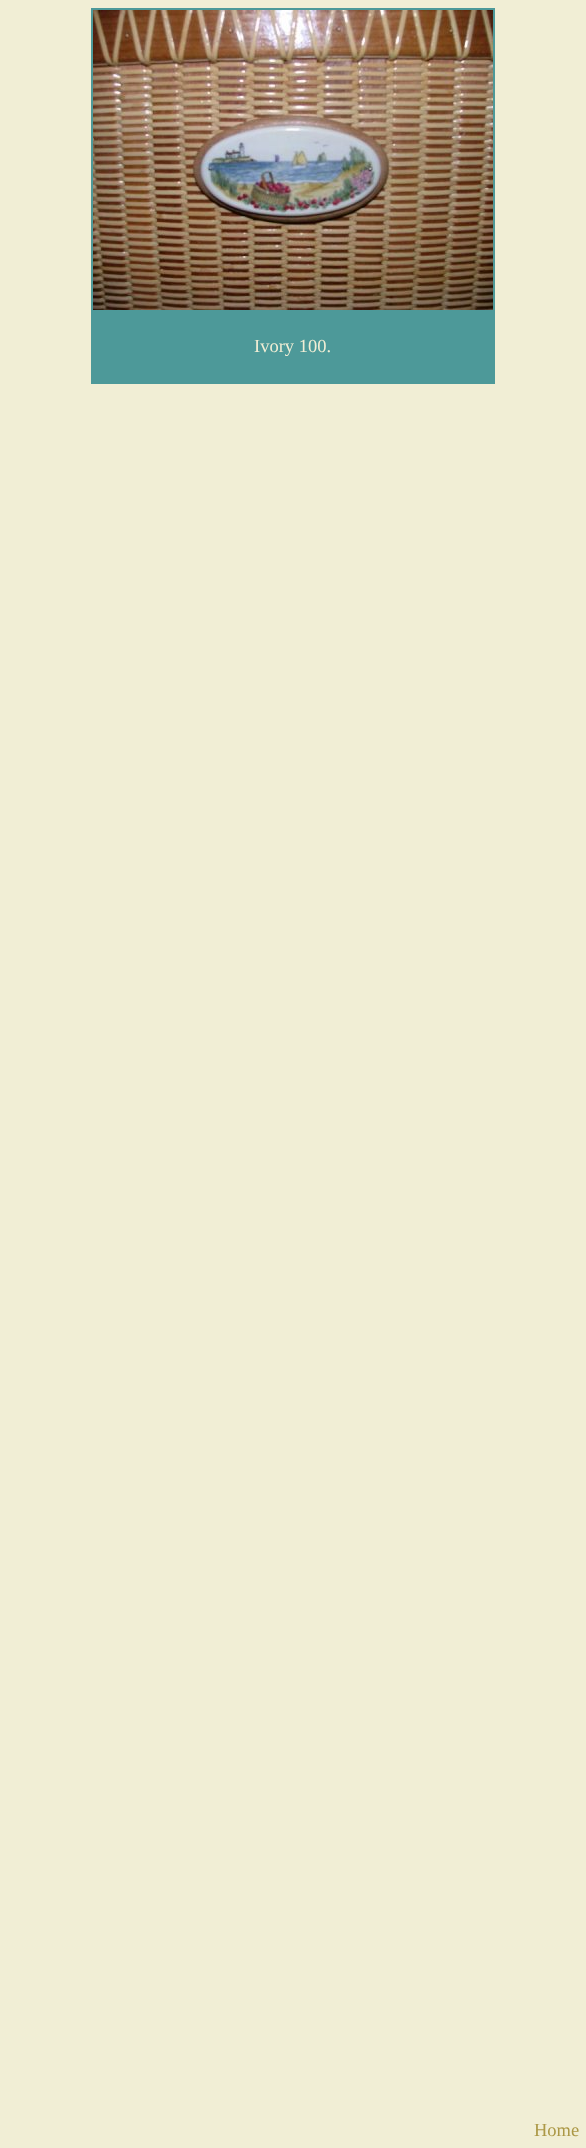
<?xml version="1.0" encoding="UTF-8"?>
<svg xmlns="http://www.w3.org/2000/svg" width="586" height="2148">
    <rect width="100%" height="100%" fill="#F1EED5"/>
    <rect x="92" y="9" width="402" height="374" fill="none" stroke="#4D9999" stroke-width="2"/>
    <image x="93" y="10" width="400" height="300" href="img_01.png"/>
    <rect x="93" y="310" width="400" height="72" fill="#4D9999"/>
    <text x="254" y="352" font-family="Liberation Serif" font-size="18.5" fill="#F1EED5">Ivory 100.</text>
    <text x="534" y="2136" font-family="Liberation Serif" font-size="18.5" fill="#AC9846">Home</text>
</svg>
